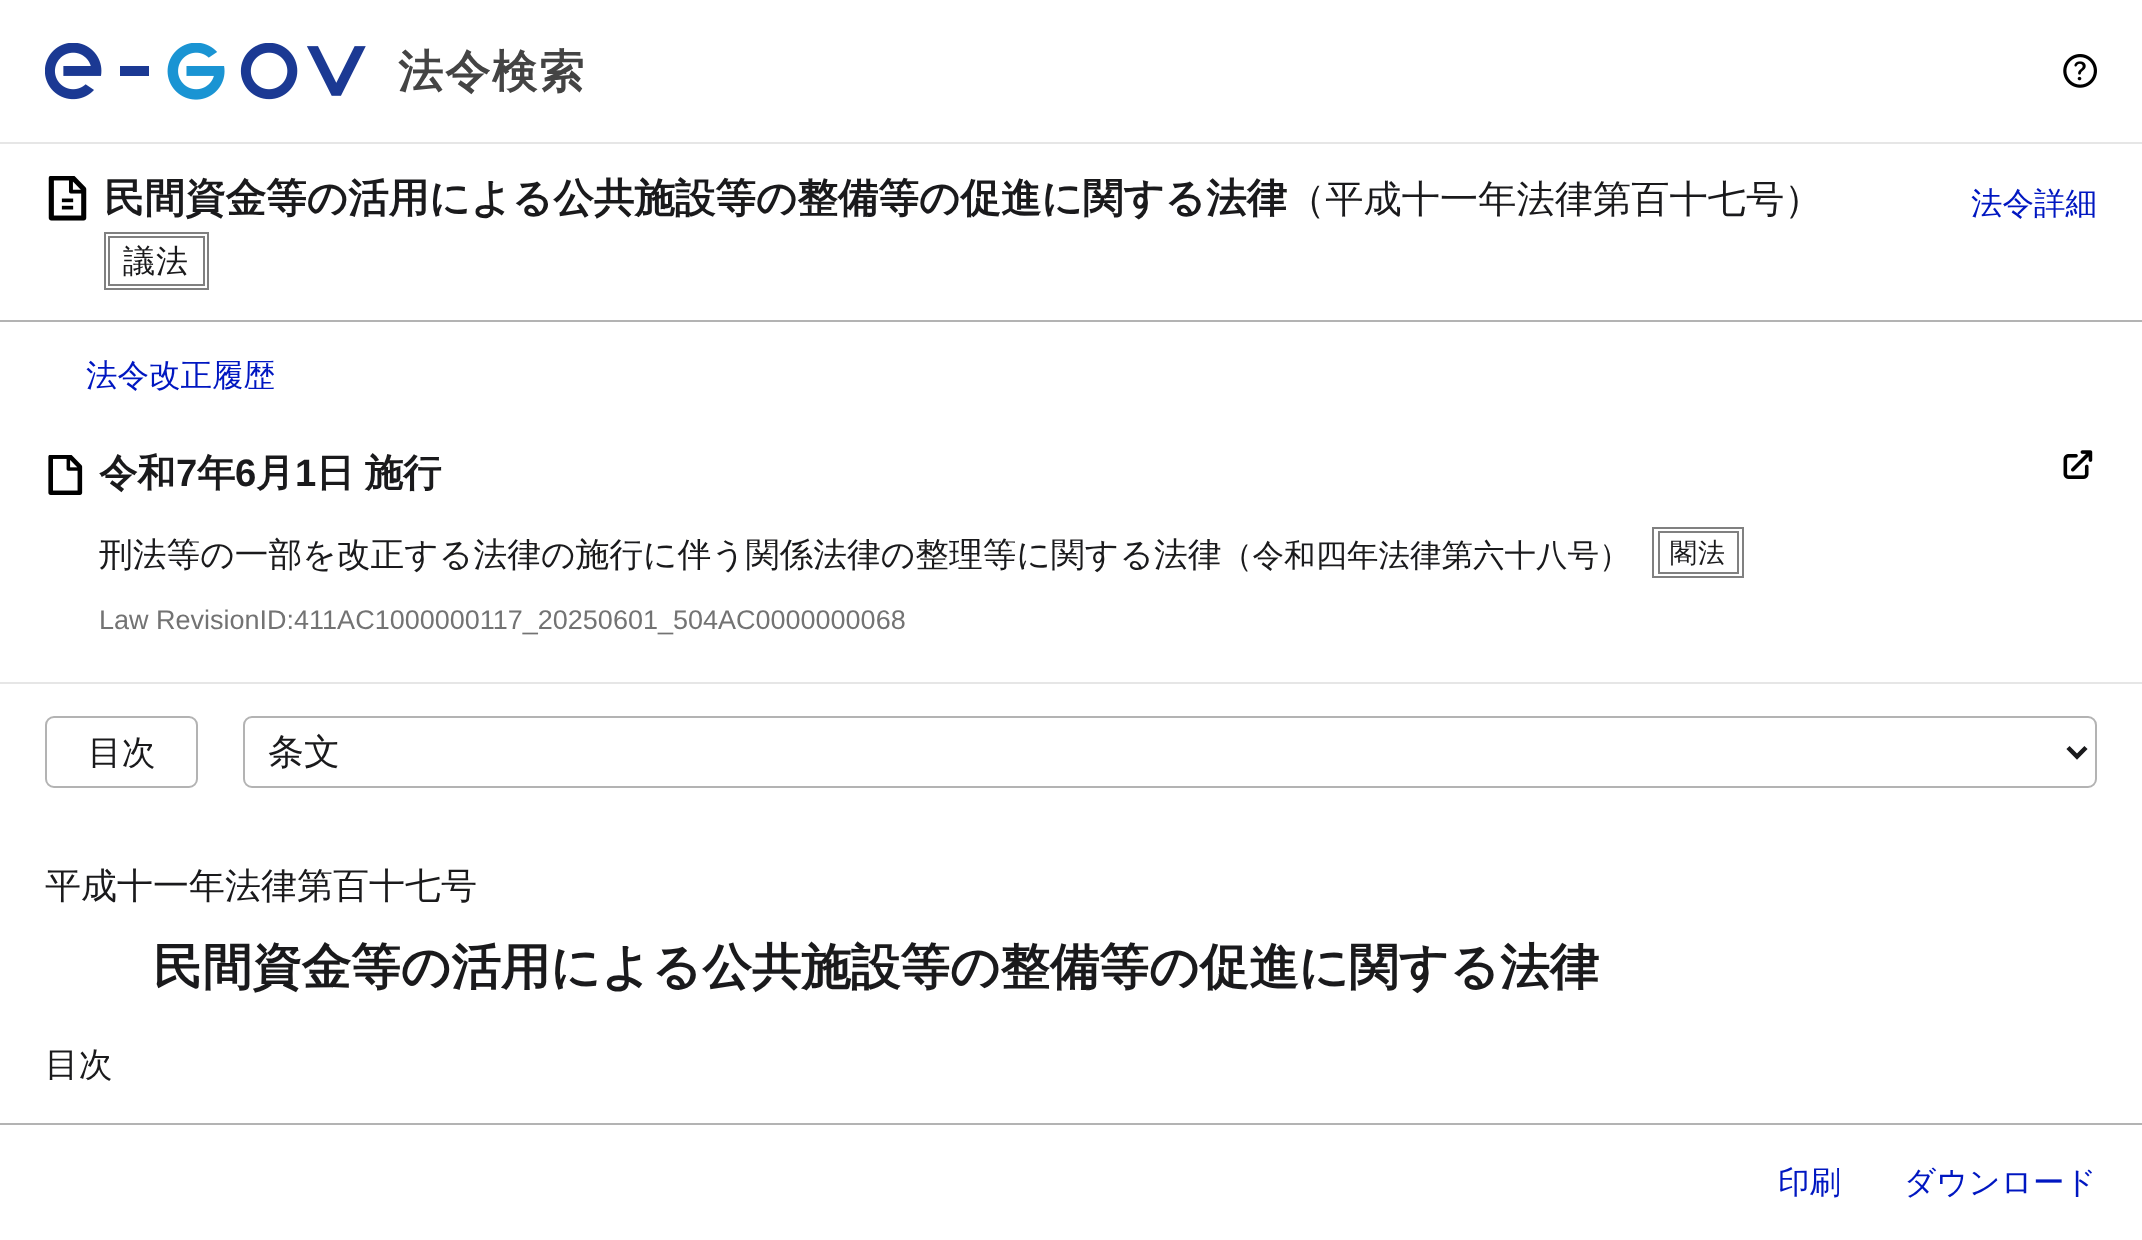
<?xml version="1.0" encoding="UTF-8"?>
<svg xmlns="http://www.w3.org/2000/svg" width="2142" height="1240">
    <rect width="100%" height="100%" fill="#FFFFFF"/>
    <rect x="0" y="142" width="2142" height="2" fill="#E6E6E6"/>
    <image x="45" y="43" width="321" height="57" href="img_01.png"/>
    <text x="398" y="87" font-family="WenQuanYi Zen Hei" font-size="45" font-weight="700" letter-spacing="2" fill="#444444">法令検索</text>
    <image x="2063" y="54" width="34" height="34" href="img_02.png"/>
    <rect x="0" y="320" width="2142" height="2" fill="#B3B3B3"/>
    <image x="48" y="176" width="39" height="45" href="img_03.png"/>
    <text x="104" y="212" font-family="WenQuanYi Zen Hei" font-size="40.5" font-weight="700" fill="#1A1A1C">民間資金等の活用による公共施設等の整備等の促進に関する法律</text>
    <text x="1287" y="212" font-family="WenQuanYi Zen Hei" font-size="38.25" font-weight="500" fill="#1A1A1C">（平成十一年法律第百十七号）</text>
    <rect x="105" y="233" width="103" height="56" fill="none" stroke="#808080" stroke-width="2"/>
    <rect x="109" y="237" width="95" height="48" fill="none" stroke="#808080" stroke-width="2"/>
    <text x="123" y="272" font-family="WenQuanYi Zen Hei" font-size="32" font-weight="500" letter-spacing="1" fill="#1A1A1C">議法</text>
    <text x="1971" y="214" font-family="WenQuanYi Zen Hei" font-size="31.5" font-weight="500" fill="#0017C1">法令詳細</text>
    <text x="86" y="386" font-family="WenQuanYi Zen Hei" font-size="31.5" font-weight="500" fill="#0017C1">法令改正履歴</text>
    <rect x="0" y="682" width="2142" height="2" fill="#E6E6E6"/>
    <image x="48" y="455" width="35" height="40" href="img_04.png"/>
    <text x="99" y="486" font-family="WenQuanYi Zen Hei" font-size="38.25" font-weight="700" fill="#1A1A1C">令和</text>
    <text x="176" y="486" font-family="Liberation Sans" font-size="38.25" font-weight="700" fill="#1A1A1C">7</text>
    <text x="197" y="486" font-family="WenQuanYi Zen Hei" font-size="38.25" font-weight="700" fill="#1A1A1C">年</text>
    <text x="235" y="486" font-family="Liberation Sans" font-size="38.25" font-weight="700" fill="#1A1A1C">6</text>
    <text x="256" y="486" font-family="WenQuanYi Zen Hei" font-size="38.25" font-weight="700" fill="#1A1A1C">月</text>
    <text x="295" y="486" font-family="Liberation Sans" font-size="38.25" font-weight="700" fill="#1A1A1C">1</text>
    <text x="316" y="486" word-spacing="-1" font-family="WenQuanYi Zen Hei" font-size="38.25" font-weight="700" fill="#1A1A1C">日 施行</text>
    <image x="2063" y="450" width="30" height="29" href="img_05.png"/>
    <text x="99" y="566" font-family="WenQuanYi Zen Hei" font-size="33.75" font-weight="500" fill="#1A1A1C">刑法等の一部を改正する法律の施行に伴う関係法律の整理等に関する法律</text>
    <text x="1221" y="566" font-family="WenQuanYi Zen Hei" font-size="31.5" font-weight="500" fill="#1A1A1C">（令和四年法律第六十八号）</text>
    <rect x="1653" y="528" width="90" height="49" fill="none" stroke="#808080" stroke-width="2"/>
    <rect x="1659" y="532" width="79" height="41" fill="none" stroke="#808080" stroke-width="2"/>
    <text x="1670" y="562" font-family="WenQuanYi Zen Hei" font-size="27" font-weight="500" letter-spacing="1" fill="#1A1A1C">閣法</text>
    <text x="99" y="629" font-family="Liberation Sans" font-size="27" fill="#737373">Law RevisionID:411AC1000000117_20250601_504AC0000000068</text>
    <rect x="46" y="717" width="151" height="70" rx="8" fill="none" stroke="#B3B3B3" stroke-width="2"/>
    <text x="88" y="764" font-family="WenQuanYi Zen Hei" font-size="33.75" font-weight="500" fill="#1A1A1C">目次</text>
    <rect x="244" y="717" width="1852" height="70" rx="8" fill="none" stroke="#B3B3B3" stroke-width="2"/>
    <path d="M 2068 747.5 L 2077 756.5 L 2086 747.5" fill="none" stroke="#1A1A1C" stroke-width="4.5"/>
    <text x="268" y="764" font-family="WenQuanYi Zen Hei" font-size="36" font-weight="500" fill="#1A1A1C">条文</text>
    <text x="45" y="898" font-family="WenQuanYi Zen Hei" font-size="36" font-weight="500" fill="#1A1A1C">平成十一年法律第百十七号</text>
    <text x="153" y="984" font-family="WenQuanYi Zen Hei" font-size="49.5" font-weight="700" fill="#1A1A1C">民間資金等の活用による公共施設等の整備等の促進に関する法律</text>
    <text x="45" y="1076" font-family="WenQuanYi Zen Hei" font-size="33.75" font-weight="500" fill="#1A1A1C">目次</text>
    <rect x="0" y="1123" width="2142" height="2" fill="#B3B3B3"/>
    <text x="1778" y="1193" font-family="WenQuanYi Zen Hei" font-size="31.5" font-weight="500" fill="#0017C1">印刷</text>
    <text x="1904" y="1193" font-family="WenQuanYi Zen Hei" font-size="31.5" font-weight="500" fill="#0017C1">ダウンロード</text>
</svg>
